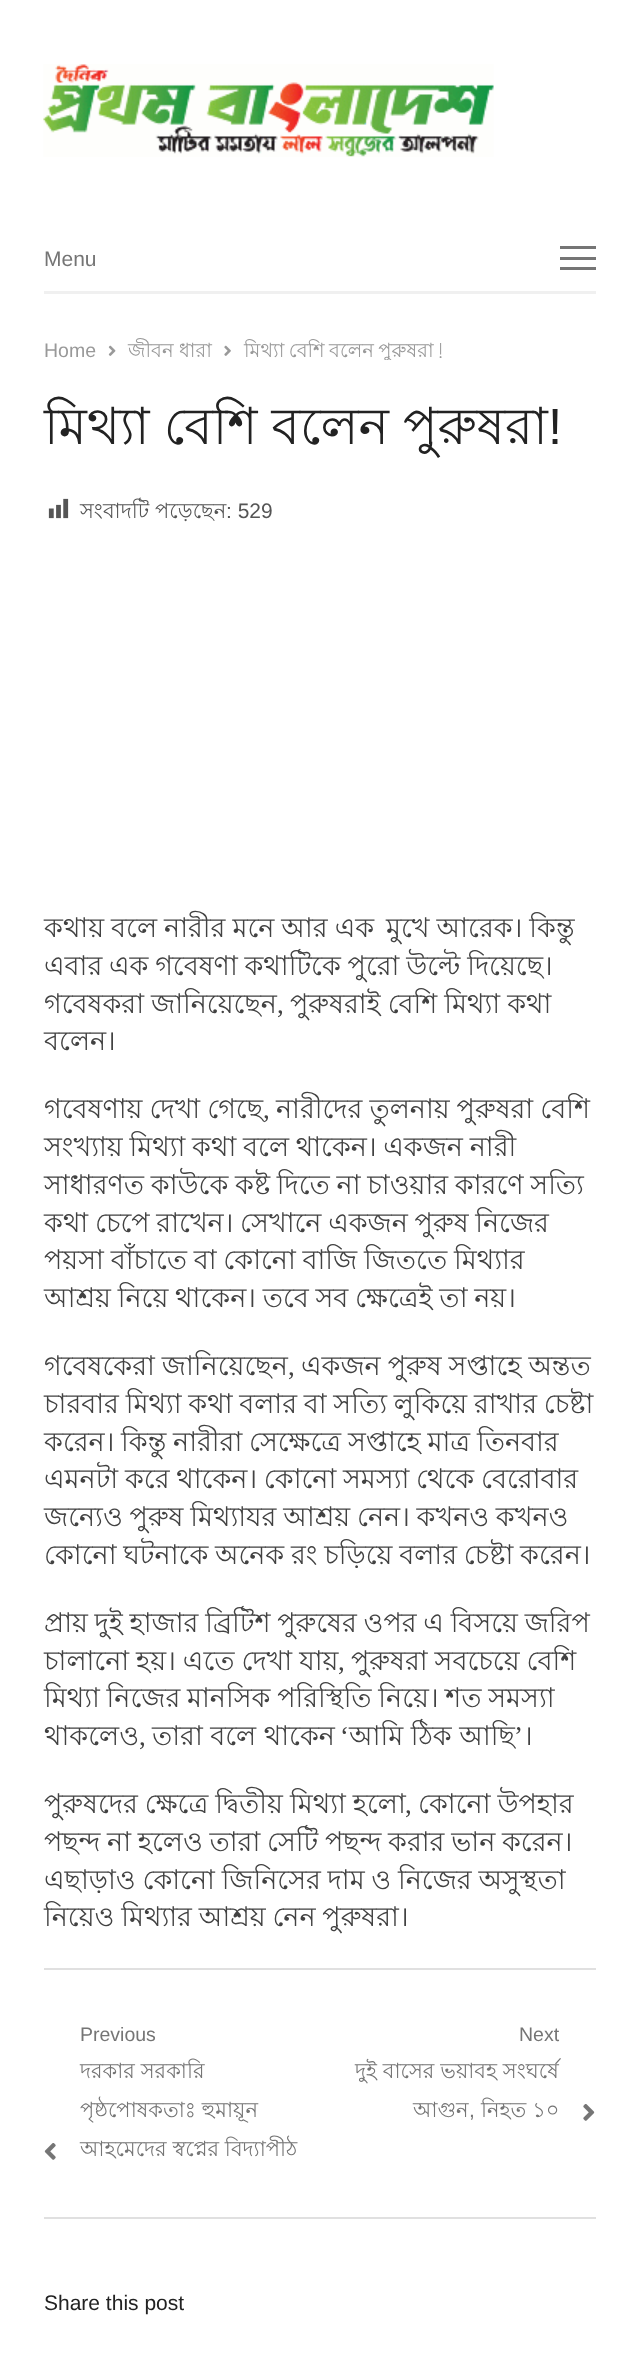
<?xml version="1.0" encoding="UTF-8"?>
<svg xmlns="http://www.w3.org/2000/svg" width="639" height="2360">
    <defs>
        <clipPath id="clip1"><rect x="44" y="330" width="552" height="30"/></clipPath>
    </defs>
    <rect width="100%" height="100%" fill="#FFFFFF"/>
    <image x="43" y="64" width="451" height="93" href="img_01.png"/>
    <rect x="44" y="291" width="552" height="3" fill="#F0F0F0"/>
    <text x="44" y="266" font-family="Liberation Sans" font-size="21" fill="#757575">Menu</text>
    <rect x="560" y="246" width="36" height="3" fill="#757575"/>
    <rect x="560" y="257" width="36" height="3" fill="#757575"/>
    <rect x="560" y="267" width="36" height="3" fill="#757575"/>
    <text x="44" y="357" font-family="Liberation Sans" font-size="19.5" fill="#999999">Home</text>
    <image x="108" y="345" width="8" height="11" href="img_02.png"/>
    <text x="128" y="357" font-family="Lohit Bengali" font-size="19.5" fill="#999999">জীবন ধারা</text>
    <image x="224" y="345" width="7" height="11" href="img_03.png"/>
    <g clip-path="url(#clip1)">
        <text x="244" y="357" word-spacing="-1" font-family="Lohit Bengali" font-size="19.5" fill="#999999">মিথ্যা বেশি বলেন পুরুষরা!</text>
    </g>
    <rect x="44" y="1968" width="552" height="2" fill="#E0E0E0"/>
    <text x="44" y="444" font-family="Lohit Bengali" font-size="51" fill="#222222">মিথ্যা বেশি বলেন পুরুষরা</text>
    <text x="548" y="444" font-family="Liberation Sans" font-size="51" fill="#222222">!</text>
    <image x="48" y="498" width="21" height="21" href="img_04.png"/>
    <text x="80" y="518" font-family="Lohit Bengali" font-size="21" fill="#555555">সংবাদটি পড়েছেন</text>
    <text x="226" y="518" font-family="Liberation Sans" font-size="21" fill="#555555">: 529</text>
    <text x="44" y="937" word-spacing="-0.5" font-family="Lohit Bengali" font-size="27" fill="#424242">কথায় বলে নারীর মনে আর এক</text>
    <text x="386" y="937" word-spacing="-0.5" font-family="Lohit Bengali" font-size="27" fill="#424242">মুখে আরেক। কিন্তু</text>
    <text font-family="Lohit Bengali" font-size="27" fill="#424242">
        <tspan x="44" y="975" word-spacing="-0.75">এবার এক গবেষণা কথাটিকে পুরো উল্টে দিয়েছে।</tspan>
        <tspan x="44" y="1013" word-spacing="-0.5">গবেষকরা জানিয়েছেন</tspan>
    </text>
    <text x="277" y="1013" font-family="Liberation Serif" font-size="27" fill="#424242">,</text>
    <text x="290" y="1013" word-spacing="-0.5" font-family="Lohit Bengali" font-size="27" fill="#424242">পুরুষরাই বেশি মিথ্যা কথা</text>
    <text x="44" y="1050" font-family="Lohit Bengali" font-size="27" fill="#424242">বলেন।</text>
    <text x="44" y="1118" word-spacing="-0.5" font-family="Lohit Bengali" font-size="27" fill="#424242">গবেষণায় দেখা গেছে</text>
    <text x="263" y="1118" font-family="Liberation Serif" font-size="27" fill="#424242">,</text>
    <text x="276" y="1118" word-spacing="-0.5" font-family="Lohit Bengali" font-size="27" fill="#424242">নারীদের তুলনায় পুরুষরা বেশি</text>
    <text font-family="Lohit Bengali" font-size="27" fill="#424242">
        <tspan x="44" y="1156" word-spacing="-0.75">সংখ্যায় মিথ্যা কথা বলে থাকেন। একজন নারী</tspan>
        <tspan x="44" y="1194" word-spacing="-0.75">সাধারণত কাউকে কষ্ট দিতে না চাওয়ার কারণে সত্যি</tspan>
        <tspan x="44" y="1232" word-spacing="-0.75">কথা চেপে রাখেন। সেখানে একজন পুরুষ নিজের</tspan>
        <tspan x="44" y="1269" word-spacing="-0.75">পয়সা বাঁচাতে বা কোনো বাজি জিততে মিথ্যার</tspan>
        <tspan x="44" y="1307" word-spacing="-0.75">আশ্রয় নিয়ে থাকেন। তবে সব ক্ষেত্রেই তা নয়।</tspan>
    </text>
    <text x="44" y="1375" word-spacing="-0.5" font-family="Lohit Bengali" font-size="27" fill="#424242">গবেষকেরা জানিয়েছেন</text>
    <text x="288" y="1375" font-family="Liberation Serif" font-size="27" fill="#424242">,</text>
    <text x="301" y="1375" word-spacing="-0.5" font-family="Lohit Bengali" font-size="27" fill="#424242">একজন পুরুষ সপ্তাহে অন্তত</text>
    <text font-family="Lohit Bengali" font-size="27" fill="#424242">
        <tspan x="44" y="1413" word-spacing="-0.75">চারবার মিথ্যা কথা বলার বা সত্যি লুকিয়ে রাখার চেষ্টা</tspan>
        <tspan x="44" y="1451" word-spacing="-0.75">করেন। কিন্তু নারীরা সেক্ষেত্রে সপ্তাহে মাত্র তিনবার</tspan>
        <tspan x="44" y="1488" word-spacing="-0.75">এমনটা করে থাকেন। কোনো সমস্যা থেকে বেরোবার</tspan>
        <tspan x="44" y="1526" word-spacing="-0.75">জন্যেও পুরুষ মিথ্যাযর আশ্রয় নেন। কখনও কখনও</tspan>
        <tspan x="44" y="1564" word-spacing="-0.75">কোনো ঘটনাকে অনেক রং চড়িয়ে বলার চেষ্টা করেন।</tspan>
    </text>
    <text font-family="Lohit Bengali" font-size="27" fill="#424242">
        <tspan x="44" y="1632" word-spacing="-0.75">প্রায় দুই হাজার ব্রিটিশ পুরুষের ওপর এ বিসয়ে জরিপ</tspan>
        <tspan x="44" y="1670" word-spacing="-0.5">চালানো হয়। এতে দেখা যায়</tspan>
    </text>
    <text x="338" y="1670" font-family="Liberation Serif" font-size="27" fill="#424242">,</text>
    <text x="351" y="1670" word-spacing="-0.5" font-family="Lohit Bengali" font-size="27" fill="#424242">পুরুষরা সবচেয়ে বেশি</text>
    <text font-family="Lohit Bengali" font-size="27" fill="#424242">
        <tspan x="44" y="1707" word-spacing="-0.75">মিথ্যা নিজের মানসিক পরিস্থিতি নিয়ে। শত সমস্যা</tspan>
        <tspan x="44" y="1745">থাকলেও</tspan>
    </text>
    <text x="152" y="1745" font-family="Lohit Bengali" font-size="27" fill="#424242">তারা বলে থাকেন</text>
    <text x="340" y="1745" font-family="Liberation Serif" font-size="27" fill="#424242">‘</text>
    <text x="349" y="1745" font-family="Lohit Bengali" font-size="27" fill="#424242">আমি ঠিক আছি</text>
    <text x="514" y="1745" font-family="Liberation Serif" font-size="27" fill="#424242">’</text>
    <text x="523" y="1745" font-family="Lohit Bengali" font-size="27" fill="#424242">।</text>
    <text x="139" y="1745" font-family="Liberation Serif" font-size="27" fill="#424242">,</text>
    <text x="44" y="1813" word-spacing="-0.5" font-family="Lohit Bengali" font-size="27" fill="#424242">পুরুষদের ক্ষেত্রে দ্বিতীয় মিথ্যা হলো</text>
    <text x="405" y="1813" font-family="Liberation Serif" font-size="27" fill="#424242">,</text>
    <text x="418" y="1813" word-spacing="-0.5" font-family="Lohit Bengali" font-size="27" fill="#424242">কোনো উপহার</text>
    <text font-family="Lohit Bengali" font-size="27" fill="#424242">
        <tspan x="44" y="1851" word-spacing="-0.75">পছন্দ না হলেও তারা সেটি পছন্দ করার ভান করেন।</tspan>
        <tspan x="44" y="1889" word-spacing="-0.75">এছাড়াও কোনো জিনিসের দাম ও নিজের অসুস্থতা</tspan>
        <tspan x="44" y="1926" word-spacing="-0.75">নিয়েও মিথ্যার আশ্রয় নেন পুরুষরা।</tspan>
    </text>
    <rect x="44" y="2217" width="552" height="2" fill="#E0E0E0"/>
    <text x="80" y="2041" font-family="Liberation Sans" font-size="19.5" fill="#757575">Previous</text>
    <text font-family="Lohit Bengali" font-size="21" fill="#757575">
        <tspan x="80" y="2078">দরকার সরকারি</tspan>
        <tspan x="80" y="2117">পৃষ্ঠপোষকতাঃ হুমায়ূন</tspan>
    </text>
    <image x="44" y="2143" width="12" height="17" href="img_05.png"/>
    <text x="80" y="2156" font-family="Lohit Bengali" font-size="21" fill="#757575">আহমেদের স্বপ্নের বিদ্যাপীঠ</text>
    <text x="519" y="2041" font-family="Liberation Sans" font-size="19.5" fill="#757575">Next</text>
    <text x="355" y="2078" font-family="Lohit Bengali" font-size="21" fill="#757575">দুই বাসের ভয়াবহ সংঘর্ষে</text>
    <text x="413" y="2117" font-family="Lohit Bengali" font-size="21" fill="#757575">আগুন</text>
    <text x="469" y="2117" font-family="Liberation Sans" font-size="21" fill="#757575">,</text>
    <text x="481" y="2117" font-family="Lohit Bengali" font-size="21" fill="#757575">নিহত ১০</text>
    <image x="583" y="2104" width="12" height="17" href="img_06.png"/>
    <text x="44" y="2310" font-family="Liberation Sans" font-size="21" fill="#222222">Share this post</text>
</svg>
